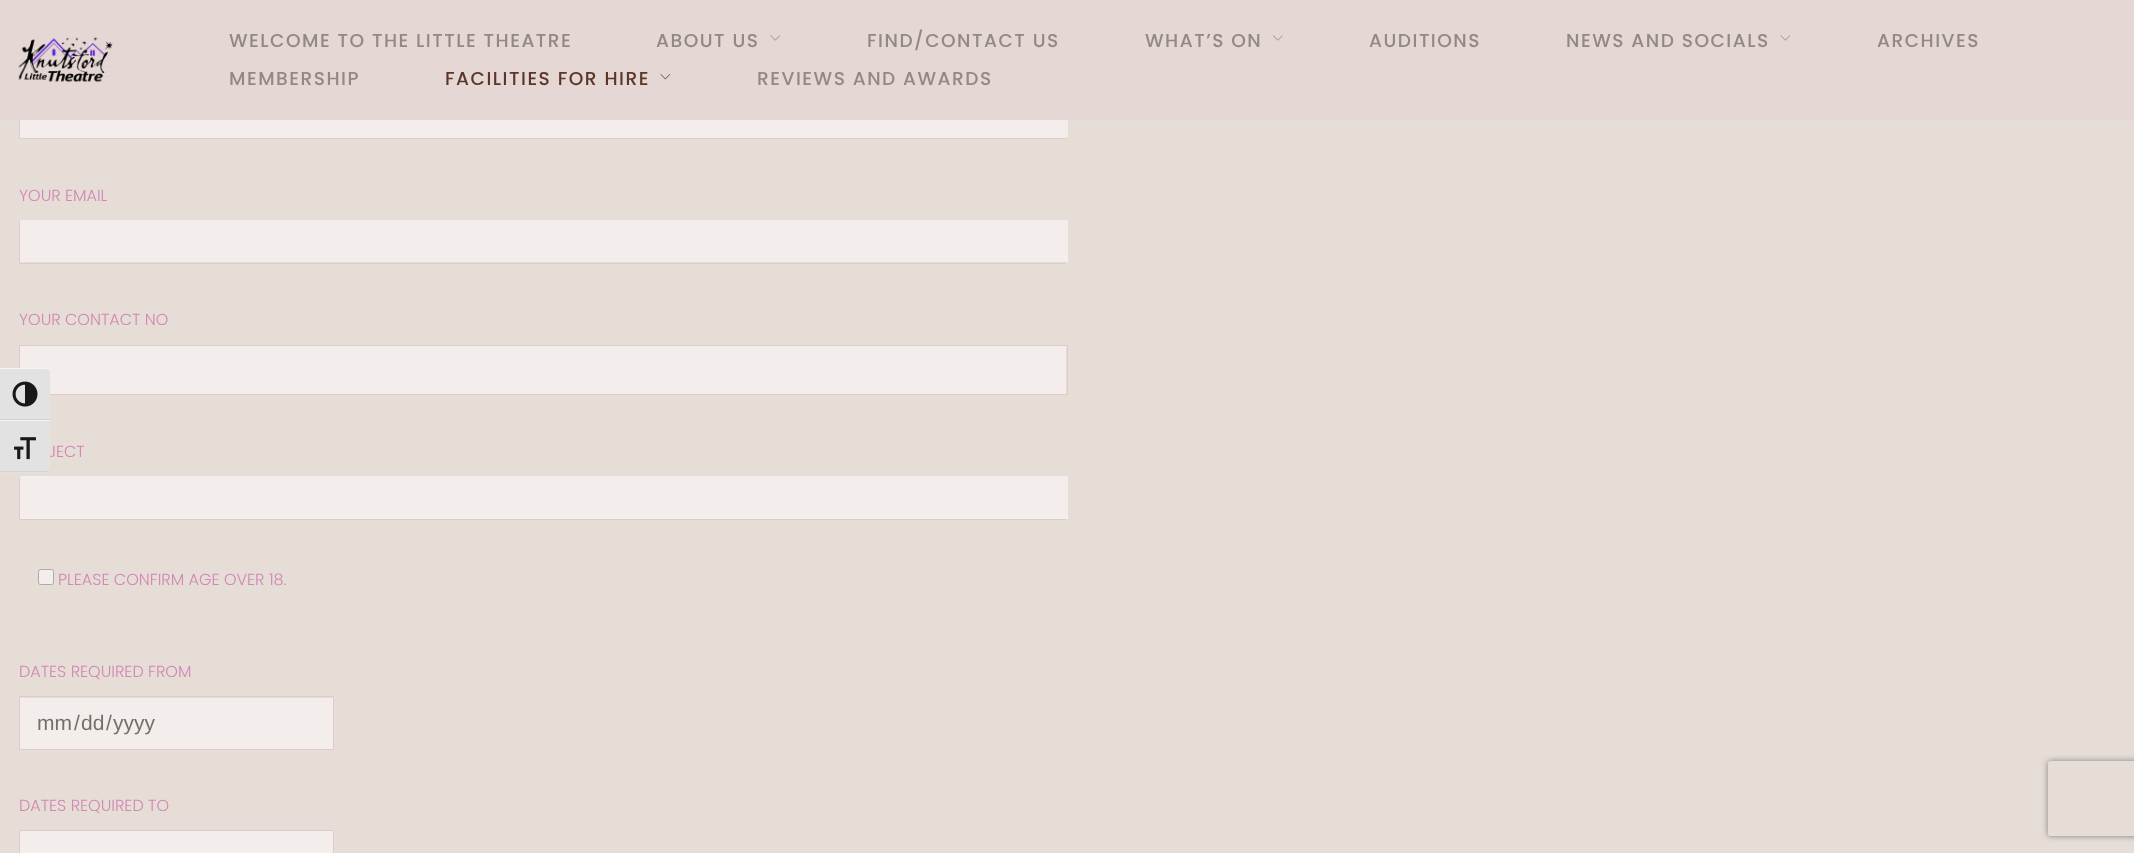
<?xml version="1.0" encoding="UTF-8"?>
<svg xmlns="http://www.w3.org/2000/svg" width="2134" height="853">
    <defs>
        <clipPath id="clip1"><path d="M 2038 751 H 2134 V 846 H 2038 Z M 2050.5 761 H 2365.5 C 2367 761 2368 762 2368 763.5 V 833.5 C 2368 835 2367 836 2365.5 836 H 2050.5 C 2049 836 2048 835 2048 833.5 V 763.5 C 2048 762 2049 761 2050.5 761 Z" clip-rule="evenodd"/></clipPath>
        <filter id="blur1" x="-50%" y="-200%" width="200%" height="500%"><feGaussianBlur stdDeviation="3"/></filter>
    </defs>
    <rect width="100%" height="100%" fill="#E6DDD6"/>
    <path d="M 20 95 H 1066 C 1067 95 1068 96 1068 96 V 137 L 1066 138 H 20 Z" fill="#F3EEEB"/>
    <rect x="0" y="0" width="2134" height="120" fill="#E5D7D4"/>
    <image x="18" y="37" width="95" height="45" href="img_01.png"/>
    <text x="229" y="47" font-family="Poppins" font-size="18.6" font-weight="500" letter-spacing="1.5" fill="#918983">WELCOME TO THE LITTLE THEATRE</text>
    <text x="656" y="47" font-family="Poppins" font-size="18.6" font-weight="500" letter-spacing="1.5" fill="#918983">ABOUT US</text>
    <image x="770" y="35" width="11" height="6" href="img_02.png"/>
    <text x="867" y="47" font-family="Poppins" font-size="18.6" font-weight="500" letter-spacing="1.5" fill="#918983">FIND/CONTACT US</text>
    <text x="1145" y="47" font-family="Poppins" font-size="18.6" font-weight="500" letter-spacing="1.5" fill="#918983">WHAT’S ON</text>
    <image x="1273" y="35" width="10" height="6" href="img_03.png"/>
    <text x="1369" y="47" font-family="Poppins" font-size="18.6" font-weight="500" letter-spacing="1.5" fill="#918983">AUDITIONS</text>
    <text x="1566" y="47" font-family="Poppins" font-size="18.6" font-weight="500" letter-spacing="1.5" fill="#918983">NEWS AND SOCIALS</text>
    <image x="1780" y="35" width="11" height="6" href="img_02.png"/>
    <text x="1877" y="47" font-family="Poppins" font-size="18.6" font-weight="500" letter-spacing="1.5" fill="#918983">ARCHIVES</text>
    <text x="229" y="85" font-family="Poppins" font-size="18.6" font-weight="500" letter-spacing="1.5" fill="#918983">MEMBERSHIP</text>
    <text x="445" y="85" font-family="Poppins" font-size="18.6" font-weight="500" letter-spacing="1.5" fill="#5B3629">FACILITIES FOR HIRE</text>
    <image x="660" y="74" width="11" height="6" href="img_04.png"/>
    <text x="757" y="85" font-family="Poppins" font-size="18.6" font-weight="500" letter-spacing="1.5" fill="#918983">REVIEWS AND AWARDS</text>
    <rect x="20" y="138" width="1046" height="1" fill="#E1C7CE"/>
    <rect x="19" y="120" width="1" height="18" fill="#E1C7CE"/>
    <text x="19" y="201" font-family="Poppins" font-size="16" font-weight="300" fill="#D286B6">YOUR EMAIL</text>
    <path d="M 20 220 H 1066 C 1067 220 1068 221 1068 221 V 262 H 1066 H 20 Z" fill="#F3EEEB"/>
    <rect x="20" y="263" width="1046" height="1" fill="#E1C7CE"/>
    <rect x="19" y="221" width="1" height="42" fill="#E1C7CE"/>
    <text x="19" y="325" font-family="Poppins" font-size="16" font-weight="300" fill="#D286B6">YOUR CONTACT NO</text>
    <rect x="20" y="346" width="1046" height="48" fill="#F3EEEB"/>
    <rect x="19.5" y="345.5" width="1048" height="49" rx="0.5" fill="none" stroke="#E1C7CE"/>
    <text x="48" y="457" font-family="Poppins" font-size="16" font-weight="300" fill="#D286B6">JECT</text>
    <path d="M 20 476 H 1066 C 1067 476 1068 477 1068 478 V 519 H 1066 H 20 Z" fill="#F3EEEB"/>
    <rect x="20" y="519" width="1046" height="1" fill="#E1C7CE"/>
    <rect x="19" y="478" width="1" height="41" fill="#E1C7CE"/>
    <rect x="38.5" y="569.5" width="15" height="15" rx="2" fill="#F3EEEB" stroke="#AEAAA6"/>
    <text x="58" y="585" font-family="Poppins" font-size="16" font-weight="300" fill="#D286B6">PLEASE CONFIRM AGE OVER 18.</text>
    <text x="19" y="677" font-family="Poppins" font-size="16" font-weight="300" fill="#D286B6">DATES REQUIRED FROM</text>
    <rect x="20" y="698" width="313" height="51" fill="#F3EEEB"/>
    <rect x="19.5" y="696.5" width="314" height="53" rx="0.5" fill="none" stroke="#E1C7CE"/>
    <text x="37" y="730" font-family="Liberation Sans" font-size="21" fill="#736F6B">mm</text>
    <text x="74" y="730" font-family="Liberation Sans" font-size="21" fill="#736F6B">/</text>
    <text x="81" y="730" font-family="Liberation Sans" font-size="21" fill="#736F6B">dd</text>
    <text x="106" y="730" font-family="Liberation Sans" font-size="21" fill="#736F6B">/</text>
    <text x="113" y="730" font-family="Liberation Sans" font-size="21" fill="#736F6B">yyyy</text>
    <text x="19" y="811" font-family="Poppins" font-size="16" font-weight="300" fill="#D286B6">DATES REQUIRED TO</text>
    <rect x="20" y="831" width="313" height="22" fill="#F3EEEB"/>
    <rect x="19.5" y="830.5" width="314" height="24" rx="0.5" fill="none" stroke="#E1C7CE"/>
    <path d="M 0 368 H 45 C 48 368 50 370 50 373 V 420 H 0 Z" fill="#E2E2E2"/>
    <path d="M 0 369 H 45 C 48 369 50 370 50 372 C 50 370 48 368 45 368 H 0 Z" fill="#F5F5F5"/>
    <rect x="0" y="419" width="50" height="1" fill="#D2D2D2"/>
    <image x="12" y="381" width="26" height="26" href="img_05.png"/>
    <path d="M 0 420 H 50 V 468 C 50 471 48 473 45 473 H 0 Z" fill="#E2E2E2"/>
    <rect x="0" y="420" width="50" height="1" fill="#F5F5F5"/>
    <path d="M 0 471 V 472 H 45 C 48 472 50 470 50 468 C 50 470 48 471 45 471 Z" fill="#D2D2D2"/>
    <image x="14" y="437" width="22" height="23" href="img_06.png"/>
    <g clip-path="url(#clip1)">
        <rect x="2048" y="761" width="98" height="75" rx="2.5" fill="#808080" filter="url(#blur1)"/>
    </g>
</svg>
